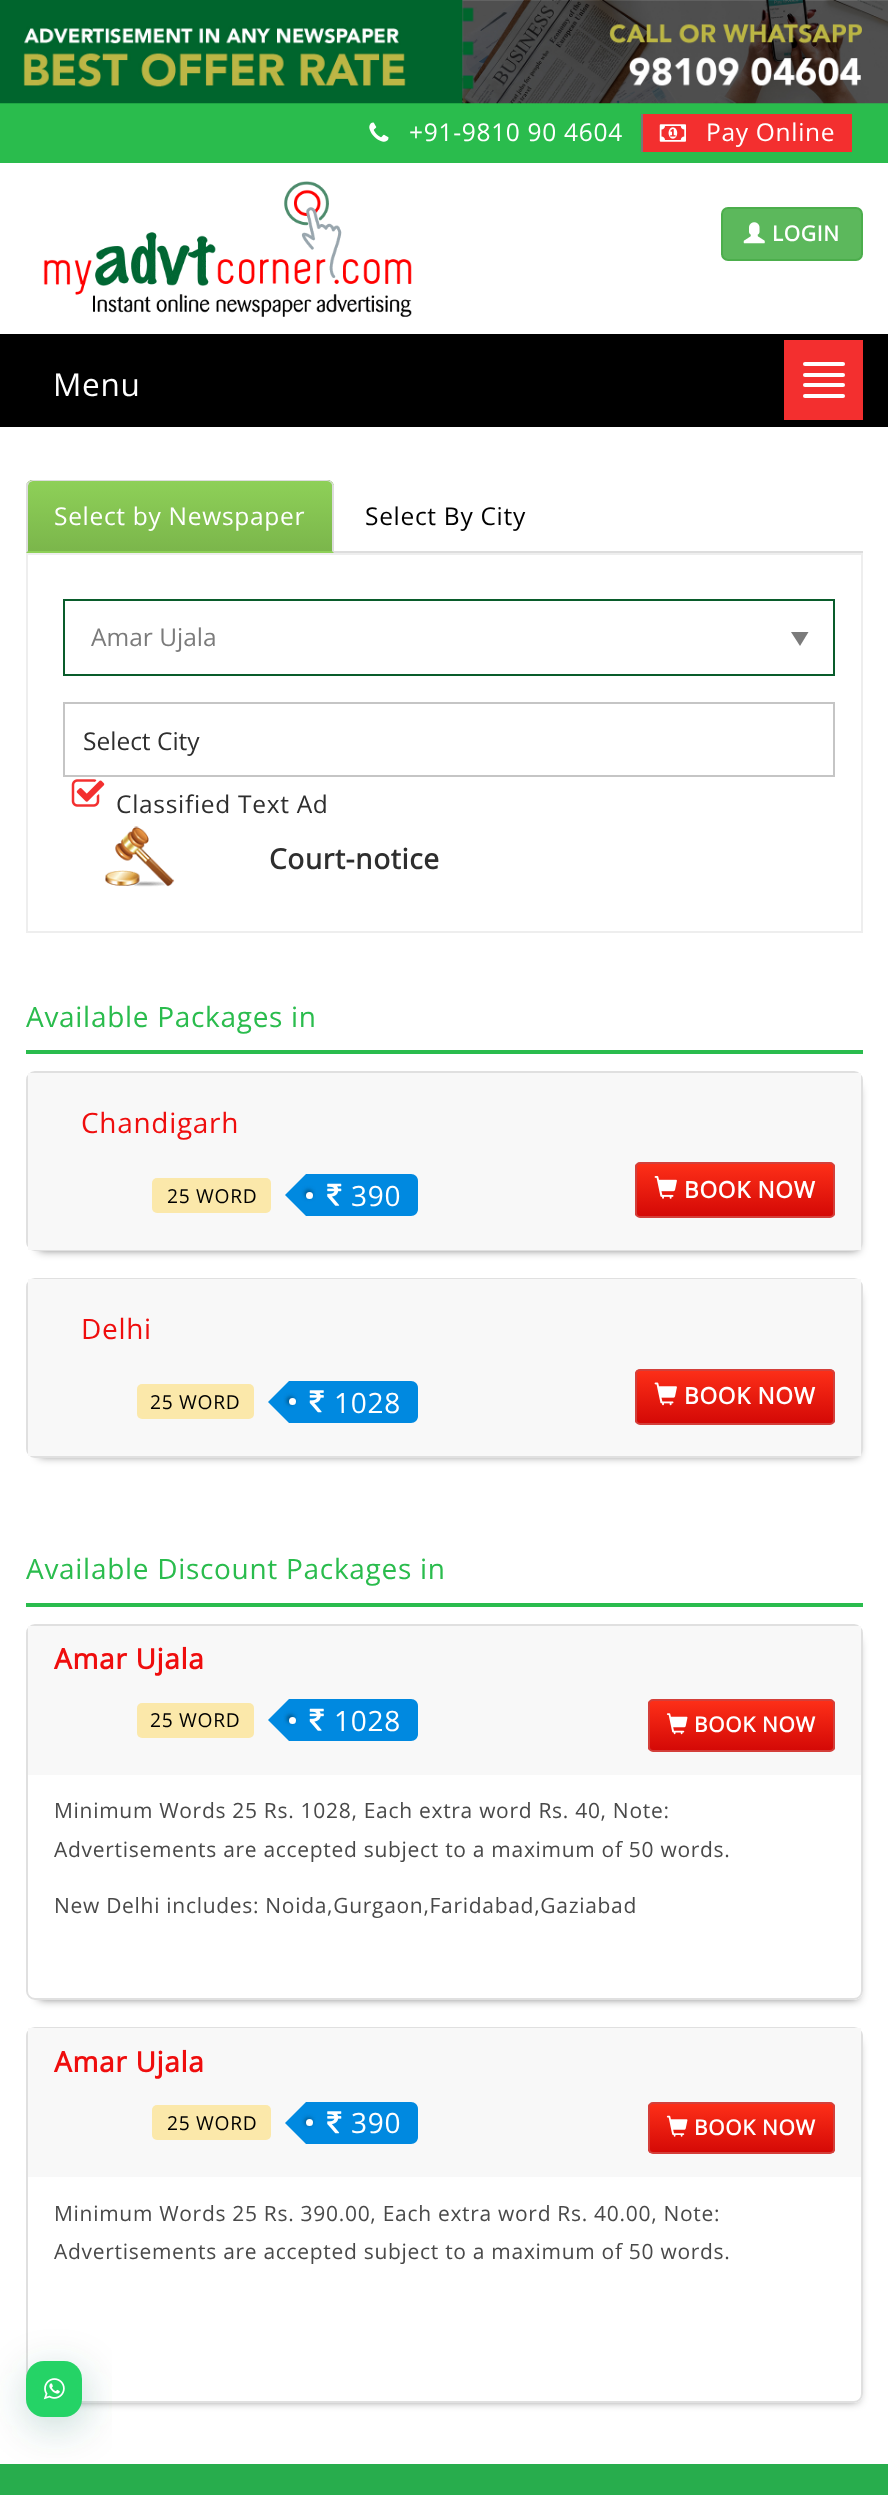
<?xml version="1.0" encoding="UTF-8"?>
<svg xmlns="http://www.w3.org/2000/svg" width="888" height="2495">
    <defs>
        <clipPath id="clip1"><path d="M 33 480 H 327 C 331 480 334 483 334 487 V 553 H 26 V 487 C 26 483 29 480 33 480 Z"/></clipPath>
        <linearGradient id="g1" gradientUnits="userSpaceOnUse" x1="180" y1="411" x2="180" y2="481"><stop offset="0" stop-color="#8ED058"/><stop offset="1" stop-color="#7BB64B"/></linearGradient>
        <linearGradient id="g2" gradientUnits="userSpaceOnUse" x1="180" y1="481" x2="180" y2="551"><stop offset="0" stop-color="#8ED058"/><stop offset="1" stop-color="#7BB64B"/></linearGradient>
        <filter id="blur1" x="-50%" y="-200%" width="200%" height="500%"><feGaussianBlur stdDeviation="5"/></filter>
        <filter id="blur2" x="-50%" y="-200%" width="200%" height="500%"><feGaussianBlur stdDeviation="2"/></filter>
        <clipPath id="clip2"><rect x="635" y="1162" width="200" height="56" rx="5"/></clipPath>
        <linearGradient id="g3" gradientUnits="userSpaceOnUse" x1="637" y1="1164" x2="637" y2="1216"><stop offset="0" stop-color="#FD2F18"/><stop offset="1" stop-color="#D40906"/></linearGradient>
        <clipPath id="clip3"><rect x="635" y="1369" width="200" height="56" rx="5"/></clipPath>
        <linearGradient id="g4" gradientUnits="userSpaceOnUse" x1="637" y1="1370" x2="637" y2="1423"><stop offset="0" stop-color="#FD2F18"/><stop offset="1" stop-color="#D40906"/></linearGradient>
        <clipPath id="clip4"><path d="M 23 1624 H 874 V 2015 H 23 Z M 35 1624 H 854 C 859 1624 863 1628 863 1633 V 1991 C 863 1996 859 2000 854 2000 H 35 C 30 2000 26 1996 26 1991 V 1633 C 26 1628 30 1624 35 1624 Z" clip-rule="evenodd"/></clipPath>
        <clipPath id="clip5"><rect x="648" y="1699" width="187" height="53" rx="5"/></clipPath>
        <linearGradient id="g5" gradientUnits="userSpaceOnUse" x1="649" y1="1701" x2="649" y2="1750"><stop offset="0" stop-color="#FD2F18"/><stop offset="1" stop-color="#D40906"/></linearGradient>
        <clipPath id="clip6"><path d="M 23 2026 H 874 V 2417 H 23 Z M 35 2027 H 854 C 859 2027 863 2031 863 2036 V 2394 C 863 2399 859 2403 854 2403 H 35 C 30 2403 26 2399 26 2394 V 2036 C 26 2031 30 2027 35 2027 Z" clip-rule="evenodd"/></clipPath>
        <clipPath id="clip7"><rect x="648" y="2102" width="187" height="52" rx="5"/></clipPath>
        <linearGradient id="g6" gradientUnits="userSpaceOnUse" x1="649" y1="2104" x2="649" y2="2153"><stop offset="0" stop-color="#FD2F18"/><stop offset="1" stop-color="#D40906"/></linearGradient>
        <filter id="blur3" x="-50%" y="-200%" width="200%" height="500%"><feGaussianBlur stdDeviation="21"/></filter>
    </defs>
    <rect width="100%" height="100%" fill="#FFFFFF"/>
    <rect x="0" y="103" width="888" height="60" fill="#2ABC4D"/>
    <image x="0" y="0" width="888" height="104" href="img_01.png"/>
    <image x="369" y="122" width="20" height="20" href="img_02.png"/>
    <text x="409" y="141" font-family="Open Sans" font-size="24.5" letter-spacing="0.7" fill="#FFFFFF">+91-9810 90 4604</text>
    <rect x="643" y="114" width="209" height="38" fill="#F32F2F"/>
    <rect x="641" y="114" width="2" height="38" fill="#777877"/>
    <image x="659" y="124" width="27" height="18" href="img_03.png"/>
    <text x="706" y="141" font-family="Open Sans" font-size="24.5" letter-spacing="0.7" fill="#FFFFFF">Pay Online</text>
    <image x="43" y="181" width="369" height="136" href="img_04.png"/>
    <rect x="722" y="208" width="140" height="52" rx="6" fill="#5CB85C" stroke="#4CAE4C" stroke-width="2"/>
    <image x="743" y="222" width="22" height="22" href="img_05.png"/>
    <text x="772" y="241" font-family="Open Sans" font-size="21" font-weight="700" letter-spacing="0.7" fill="#FFFFFF">LOGIN</text>
    <rect x="0" y="334" width="888" height="93" fill="#000000"/>
    <text x="53" y="396" font-family="Open Sans" font-size="31.5" letter-spacing="0.7" fill="#FFFFFF">Menu</text>
    <rect x="784" y="340" width="79" height="80" fill="#F32F2F"/>
    <rect x="803" y="362" width="42" height="4" rx="2" fill="#FFFFFF"/>
    <rect x="803" y="373" width="42" height="4" rx="2" fill="#FFFFFF"/>
    <rect x="803" y="383" width="42" height="4" rx="2" fill="#FFFFFF"/>
    <rect x="803" y="394" width="42" height="4" rx="2" fill="#FFFFFF"/>
    <rect x="334" y="551" width="529" height="2" fill="#DDDDDD"/>
    <path d="M 33 480 H 327 C 331 480 334 483 334 487 V 553 H 26 V 487 C 26 483 29 480 33 480 Z" fill="#8ED058"/>
    <g clip-path="url(#clip1)">
        <rect x="26" y="480" width="308" height="1" fill="url(#g1)"/>
        <rect x="26" y="481" width="308" height="70" fill="url(#g2)"/>
    </g>
    <path d="M 33 480 C 31 480 30 481 28 482 L 29 483 C 30 482 32 481 33 481 H 327 C 329 481 330 482 331 483 L 332 482 C 331 481 329 480 327 480 Z" fill="#DDDDDD"/>
    <path d="M 334 553 V 485 L 332 482 L 331 483 C 332 484 332 485 332 486 V 551 Z" fill="#DDDDDD"/>
    <path d="M 26 553 L 28 551 V 486 C 28 485 29 484 29 483 L 28 482 L 26 484 Z" fill="#DDDDDD"/>
    <text x="54" y="525" font-family="Open Sans" font-size="24.5" letter-spacing="0.7" fill="#FFFFFF">Select by Newspaper</text>
    <text x="365" y="525" font-family="Open Sans" font-size="24.5" letter-spacing="0.7" fill="#000000">Select By City</text>
    <rect x="27" y="554" width="835" height="378" fill="none" stroke="#EEEEEE" stroke-width="2"/>
    <rect x="64" y="600" width="770" height="75" fill="none" stroke="#095C2B" stroke-width="2"/>
    <text x="91" y="646" font-family="Open Sans" font-size="24.5" fill="#7B7B7B">Amar Ujala</text>
    <path d="M 791 632 H 808.5 L 800 646 Z" fill="#7B7B7B"/>
    <rect x="64" y="703" width="770" height="73" fill="none" stroke="#C5C5C5" stroke-width="2"/>
    <text x="83" y="750" font-family="Open Sans" font-size="24.5" fill="#2E2E2E">Select City</text>
    <image x="71" y="779" width="34" height="28" href="img_06.png"/>
    <text x="116" y="813" font-family="Open Sans" font-size="24.5" letter-spacing="0.7" fill="#2E2E2E">Classified Text Ad</text>
    <image x="105" y="826" width="70" height="61" href="img_07.png"/>
    <text x="269" y="869" font-family="Open Sans" font-size="28" font-weight="700" letter-spacing="0.7" fill="#2E2E2E">Court-notice</text>
    <rect x="26" y="1050" width="837" height="4" fill="#2ABC4D"/>
    <text x="26" y="1027" font-family="Open Sans" font-size="28" letter-spacing="0.7" fill="#2ABC4D">Available Packages in</text>
    <rect x="39" y="1087" width="819" height="163" fill="#000000" fill-opacity="0.55" filter="url(#blur1)"/>
    <rect x="27" y="1072" width="835" height="178" rx="8" fill="none" stroke="#E0E0E0" stroke-width="2"/>
    <rect x="28" y="1073" width="833" height="177" fill="#F8F8F8"/>
    <text x="81" y="1133" font-family="Open Sans" font-size="28" letter-spacing="0.7" fill="#EF0D0D">Chandigarh</text>
    <rect x="152" y="1178" width="119" height="35" rx="5" fill="#FBE8AA"/>
    <text x="167" y="1203" font-family="Open Sans" font-size="19.25" letter-spacing="0.7" fill="#000000">25 WORD</text>
    <path d="M 306 1174 H 411 C 415 1174 418 1177 418 1181 V 1209 C 418 1213 415 1216 411 1216 H 306 Z" fill="#0089E0"/>
    <path d="M 306 1174 V 1216 L 285 1195 Z" fill="#0089E0"/>
    <rect x="305" y="1190" width="7" height="7" rx="3.5" fill="#004977" filter="url(#blur2)"/>
    <circle cx="309.5" cy="1195.5" r="3.5" fill="#FFFFFF"/>
    <image x="327" y="1183" width="15" height="23" href="img_08.png"/>
    <text x="351" y="1206" font-family="Open Sans" font-size="28" letter-spacing="0.7" fill="#FFFFFF">390</text>
    <g clip-path="url(#clip2)">
        <rect x="635" y="1164" width="200" height="52" fill="url(#g3)"/>
    </g>
    <rect x="636" y="1163" width="198" height="54" rx="4" fill="none" stroke="#D43F3A" stroke-width="2"/>
    <image x="654" y="1176" width="23" height="23" href="img_09.png"/>
    <text x="684" y="1198" font-family="Open Sans" font-size="22.75" font-weight="700" letter-spacing="0.7" fill="#FFFFFF">BOOK NOW</text>
    <rect x="39" y="1293" width="819" height="163" fill="#000000" fill-opacity="0.55" filter="url(#blur1)"/>
    <rect x="27" y="1279" width="835" height="178" rx="8" fill="none" stroke="#E0E0E0" stroke-width="2"/>
    <rect x="28" y="1279" width="833" height="177" fill="#F8F8F8"/>
    <text x="81" y="1339" font-family="Open Sans" font-size="28" letter-spacing="0.7" fill="#EF0D0D">Delhi</text>
    <rect x="137" y="1384" width="117" height="35" rx="5" fill="#FBE8AA"/>
    <text x="150" y="1409" font-family="Open Sans" font-size="19.25" letter-spacing="0.7" fill="#000000">25 WORD</text>
    <path d="M 289 1381 H 411 C 415 1381 418 1384 418 1388 V 1416 C 418 1420 415 1423 411 1423 H 289 Z" fill="#0089E0"/>
    <path d="M 289 1381 V 1423 L 268 1402 Z" fill="#0089E0"/>
    <rect x="287" y="1397" width="7" height="7" rx="3.5" fill="#004977" filter="url(#blur2)"/>
    <circle cx="292.5" cy="1401.5" r="3.5" fill="#FFFFFF"/>
    <image x="309" y="1390" width="15" height="23" href="img_10.png"/>
    <text x="334" y="1413" font-family="Open Sans" font-size="28" letter-spacing="0.7" fill="#FFFFFF">1028</text>
    <g clip-path="url(#clip3)">
        <rect x="635" y="1370" width="200" height="53" fill="url(#g4)"/>
    </g>
    <rect x="636" y="1370" width="198" height="54" rx="4" fill="none" stroke="#D43F3A" stroke-width="2"/>
    <image x="654" y="1382" width="23" height="24" href="img_11.png"/>
    <text x="684" y="1404" font-family="Open Sans" font-size="22.75" font-weight="700" letter-spacing="0.7" fill="#FFFFFF">BOOK NOW</text>
    <rect x="26" y="1603" width="837" height="4" fill="#2ABC4D"/>
    <text x="26" y="1579" font-family="Open Sans" font-size="28" letter-spacing="0.7" fill="#2ABC4D">Available Discount Packages in</text>
    <g clip-path="url(#clip4)">
        <rect x="39" y="1640" width="819" height="359" fill="#000000" fill-opacity="0.55" filter="url(#blur1)"/>
    </g>
    <rect x="27" y="1625" width="835" height="374" rx="8" fill="none" stroke="#E0E0E0" stroke-width="2"/>
    <rect x="28" y="1626" width="833" height="149" fill="#F8F8F8"/>
    <text x="54" y="1669" font-family="Open Sans" font-size="28" font-weight="700" letter-spacing="0.7" fill="#EF0D0D">Amar Ujala</text>
    <rect x="137" y="1703" width="117" height="35" rx="5" fill="#FBE8AA"/>
    <text x="150" y="1727" font-family="Open Sans" font-size="19.25" letter-spacing="0.7" fill="#000000">25 WORD</text>
    <path d="M 289 1699 H 411 C 415 1699 418 1702 418 1706 V 1734 C 418 1738 415 1741 411 1741 H 289 Z" fill="#0089E0"/>
    <path d="M 289 1699 V 1741 L 268 1720 Z" fill="#0089E0"/>
    <rect x="287" y="1715" width="7" height="7" rx="3.5" fill="#004977" filter="url(#blur2)"/>
    <circle cx="292.5" cy="1720.5" r="3.5" fill="#FFFFFF"/>
    <image x="309" y="1708" width="15" height="23" href="img_12.png"/>
    <text x="334" y="1731" font-family="Open Sans" font-size="28" letter-spacing="0.7" fill="#FFFFFF">1028</text>
    <g clip-path="url(#clip5)">
        <rect x="648" y="1701" width="187" height="49" fill="url(#g5)"/>
    </g>
    <rect x="649" y="1700" width="185" height="51" rx="4" fill="none" stroke="#D43F3A" stroke-width="2"/>
    <image x="666" y="1713" width="22" height="22" href="img_13.png"/>
    <text x="694" y="1732" font-family="Open Sans" font-size="21" font-weight="700" letter-spacing="0.7" fill="#FFFFFF">BOOK NOW</text>
    <text font-family="Open Sans" font-size="21" letter-spacing="0.7" fill="#494949">
        <tspan x="54" y="1818">Minimum Words 25 Rs. 1028, Each extra word Rs. 40, Note:</tspan>
        <tspan x="54" y="1857">Advertisements are accepted subject to a maximum of 50 words.</tspan>
    </text>
    <text x="54" y="1913" font-family="Open Sans" font-size="21" letter-spacing="0.7" fill="#494949">New Delhi includes: Noida,Gurgaon,Faridabad,Gaziabad</text>
    <g clip-path="url(#clip6)">
        <rect x="39" y="2042" width="819" height="359" fill="#000000" fill-opacity="0.55" filter="url(#blur1)"/>
    </g>
    <rect x="27" y="2028" width="835" height="374" rx="8" fill="none" stroke="#E0E0E0" stroke-width="2"/>
    <rect x="28" y="2028" width="833" height="149" fill="#F8F8F8"/>
    <text x="54" y="2072" font-family="Open Sans" font-size="28" font-weight="700" letter-spacing="0.7" fill="#EF0D0D">Amar Ujala</text>
    <rect x="152" y="2105" width="119" height="35" rx="5" fill="#FBE8AA"/>
    <text x="167" y="2130" font-family="Open Sans" font-size="19.25" letter-spacing="0.7" fill="#000000">25 WORD</text>
    <path d="M 306 2102 H 411 C 415 2102 418 2105 418 2109 V 2137 C 418 2141 415 2144 411 2144 H 306 Z" fill="#0089E0"/>
    <path d="M 306 2102 V 2144 L 285 2123 Z" fill="#0089E0"/>
    <rect x="305" y="2118" width="7" height="7" rx="3.5" fill="#004977" filter="url(#blur2)"/>
    <circle cx="309.5" cy="2122.5" r="3.5" fill="#FFFFFF"/>
    <image x="327" y="2111" width="15" height="23" href="img_14.png"/>
    <text x="351" y="2133" font-family="Open Sans" font-size="28" letter-spacing="0.7" fill="#FFFFFF">390</text>
    <g clip-path="url(#clip7)">
        <rect x="648" y="2104" width="187" height="49" fill="url(#g6)"/>
    </g>
    <rect x="649" y="2103" width="185" height="50" rx="4" fill="none" stroke="#D43F3A" stroke-width="2"/>
    <image x="666" y="2115" width="22" height="22" href="img_15.png"/>
    <text x="694" y="2135" font-family="Open Sans" font-size="21" font-weight="700" letter-spacing="0.7" fill="#FFFFFF">BOOK NOW</text>
    <text font-family="Open Sans" font-size="21" letter-spacing="0.7" fill="#494949">
        <tspan x="54" y="2221">Minimum Words 25 Rs. 390.00, Each extra word Rs. 40.00, Note:</tspan>
        <tspan x="54" y="2259">Advertisements are accepted subject to a maximum of 50 words.</tspan>
    </text>
    <rect x="0" y="2464" width="888" height="31" fill="#28AD4D"/>
    <rect x="28" y="2371" width="56" height="56" rx="18" fill="#075E54" fill-opacity="0.24" filter="url(#blur3)"/>
    <rect x="26" y="2361" width="56" height="56" rx="18" fill="#25D366"/>
    <image x="43" y="2378" width="22" height="22" href="img_16.png"/>
</svg>
